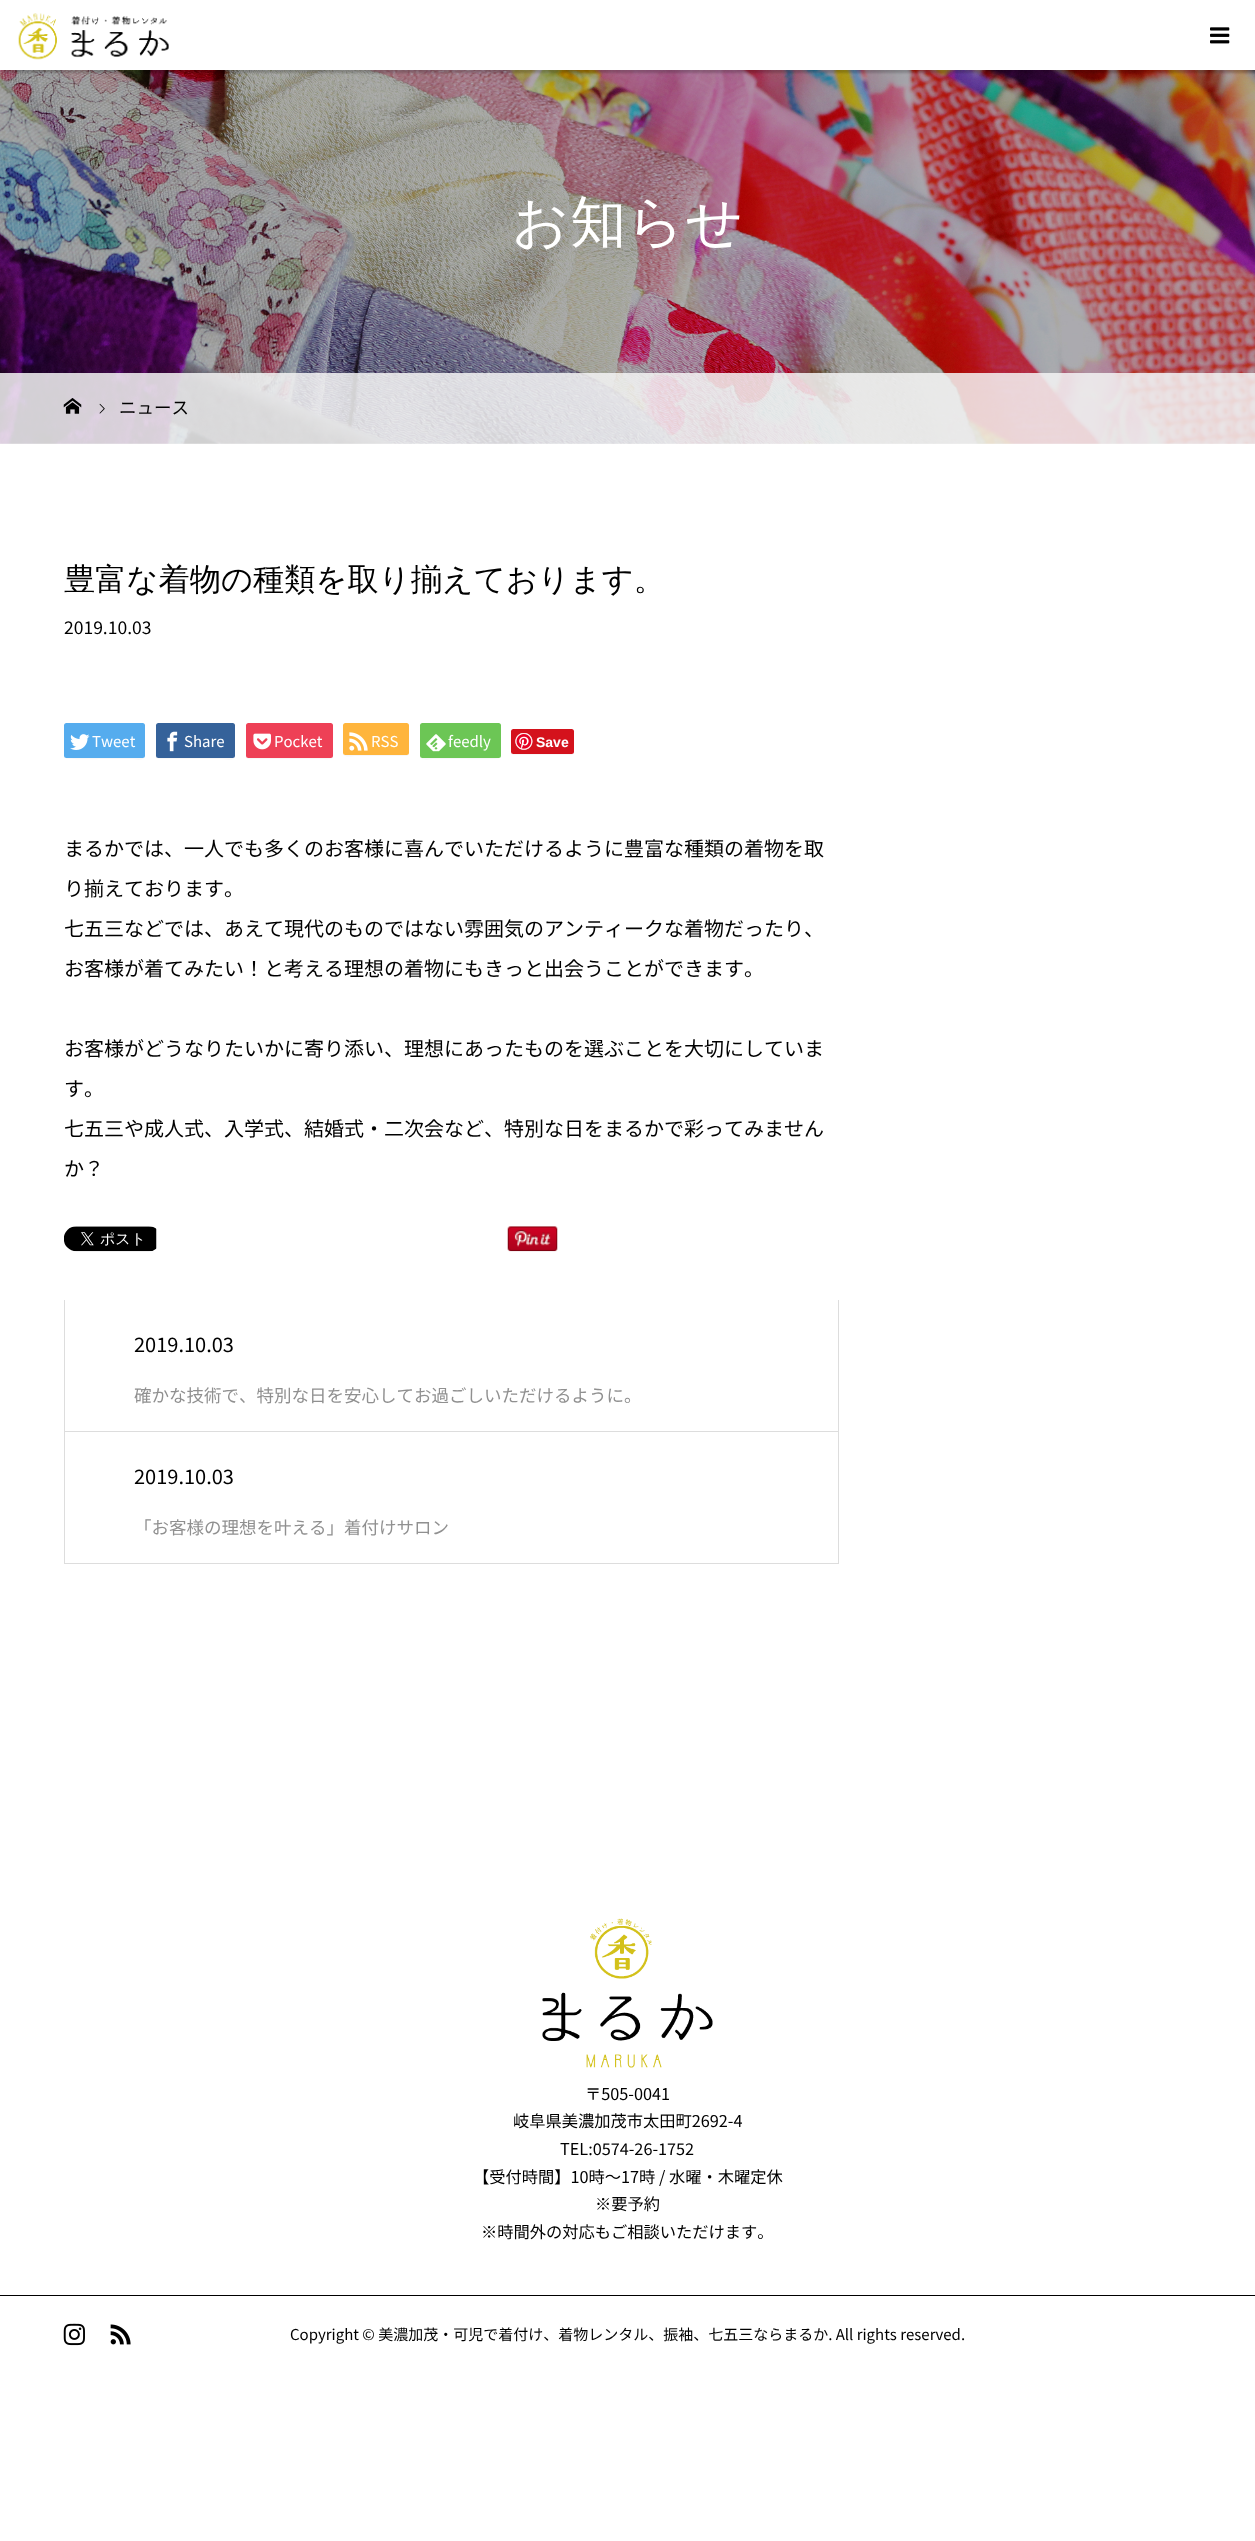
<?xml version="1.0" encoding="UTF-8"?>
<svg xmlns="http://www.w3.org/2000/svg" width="1255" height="2541">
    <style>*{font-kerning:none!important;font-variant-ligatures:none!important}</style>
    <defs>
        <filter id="blur1" x="-50%" y="-200%" width="200%" height="500%"><feGaussianBlur stdDeviation="1"/></filter>
    </defs>
    <rect width="100%" height="100%" fill="#FFFFFF"/>
    <image x="0" y="70" width="1255" height="374" href="img_03.png"/>
    <rect x="3" y="3" width="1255" height="70" fill="#000000" fill-opacity="0.2" filter="url(#blur1)"/>
    <rect x="1" y="1" width="1254" height="69" fill="#FFFFFF"/>
    <image x="18" y="13" width="151" height="47" href="img_01.png"/>
    <image x="1210" y="27" width="20" height="17" href="img_02.png"/>
    <text x="512" y="241" font-family="Noto Sans" font-size="56" font-weight="500" letter-spacing="1" fill="#FFFFFF">お知らせ</text>
    <rect x="0" y="373" width="1255" height="71" fill="#F5F5F5" fill-opacity="0.85"/>
    <image x="63" y="398" width="19" height="16" href="img_04.png"/>
    <image x="99" y="403" width="6" height="11" href="img_05.png"/>
    <text x="119" y="414" font-family="Noto Sans JP" font-size="17.5" font-weight="100" fill="#000000">ニュース</text>
    <text x="64" y="590" font-family="Noto Sans" font-size="31.25" font-weight="500" fill="#000000">豊富な着物の種類を取り揃えております。</text>
    <text x="64" y="634" font-family="Noto Sans JP" font-size="17.5" font-weight="100" fill="#000000">2019.10.03</text>
    <path d="M 64 756 L 65 758 C 66 760 100 759 104 759 H 130 C 135 759 145 762 145 755 C 145 756 144 758 142 758 H 66 C 65 758 64 757 64 756 Z" fill="#F7F7F7"/>
    <rect x="64" y="723" width="81" height="35" rx="2.5" fill="#55ACEE"/>
    <image x="70" y="734" width="20" height="16" href="img_06.png"/>
    <text x="92" y="747" font-family="Noto Sans JP" font-size="15" font-weight="100" fill="#FFFFFF">Tweet</text>
    <path d="M 156 725 V 742 C 156 761 152 759 171 759 H 220 C 226 759 235 762 235 755 C 235 756 234 758 232 758 H 159 C 157 758 156 756 156 755 Z" fill="#F7F7F7"/>
    <rect x="156" y="723" width="79" height="35" rx="2.5" fill="#35629A"/>
    <image x="167" y="731" width="11" height="21" href="img_07.png"/>
    <text x="184" y="747" font-family="Noto Sans JP" font-size="15" font-weight="100" fill="#FFFFFF">Share</text>
    <path d="M 246 725 V 746 C 246 762 244 759 262 759 H 317 C 337 759 333 762 333 742 C 333 739 334 727 332 725 V 755 C 332 756 331 758 330 758 H 249 C 247 758 246 756 246 755 Z" fill="#F7F7F7"/>
    <rect x="246" y="723" width="87" height="35" rx="2.5" fill="#EE4056"/>
    <image x="253" y="733" width="18" height="17" href="img_08.png"/>
    <text x="274" y="747" font-family="Noto Sans JP" font-size="15" font-weight="100" fill="#FFFFFF">Pocket</text>
    <path d="M 343 754 C 344 758 352 756 356 756 H 396 C 411 756 409 758 409 744 V 725 V 752 C 409 754 408 755 406 755 H 345 Z" fill="#F7F7F7"/>
    <rect x="343" y="723" width="66" height="32" rx="2.5" fill="#FFB53C"/>
    <image x="349" y="732" width="19" height="19" href="img_09.png"/>
    <text x="371" y="747" font-family="Noto Sans JP" font-size="15" font-weight="100" fill="#FFFFFF">RSS</text>
    <path d="M 420 755 C 420 762 430 759 435 759 H 460 C 465 759 499 760 500 758 L 501 756 C 501 757 500 758 499 758 H 422 C 421 758 420 756 420 755 Z" fill="#F7F7F7"/>
    <rect x="420" y="723" width="81" height="35" rx="2.5" fill="#6CC655"/>
    <image x="426" y="734" width="20" height="18" href="img_10.png"/>
    <text x="448" y="747" font-family="Noto Sans JP" font-size="15" font-weight="100" fill="#FFFFFF">feedly</text>
    <path d="M 511 731 V 746 C 511 757 510 755 523 755 H 562 C 575 755 574 757 574 746 V 731 V 751 C 574 753 573 754 571 754 H 514 C 512 754 511 753 511 751 Z" fill="#F7F7F7"/>
    <rect x="511" y="729" width="63" height="25" rx="2.5" fill="#D4121C"/>
    <image x="515" y="733" width="18" height="17" href="img_11.png"/>
    <text x="536" y="747" font-family="Liberation Sans" font-size="14" font-weight="700" fill="#FFFFFF">Save</text>
    <text x="64" y="856" font-family="Noto Sans JP" font-size="20" font-weight="100" fill="#000000">まるかでは、一人でも多くのお客様に喜んでいただけるように豊富な種類の着物を取</text>
    <text x="64" y="896" font-family="Noto Sans JP" font-size="20" font-weight="100" fill="#000000">り揃えております。</text>
    <text x="64" y="936" font-family="Noto Sans JP" font-size="20" font-weight="100" fill="#000000">七五三などでは、あえて現代のものではない雰囲気のアンティークな着物だったり、</text>
    <text x="64" y="976" font-family="Noto Sans JP" font-size="20" font-weight="100" fill="#000000">お客様が着てみたい！と考える理想の着物にもきっと出会うことができます。</text>
    <text x="64" y="1056" font-family="Noto Sans JP" font-size="20" font-weight="100" fill="#000000">お客様がどうなりたいかに寄り添い、理想にあったものを選ぶことを大切にしていま</text>
    <text x="64" y="1096" font-family="Noto Sans JP" font-size="20" font-weight="100" fill="#000000">す。</text>
    <text x="64" y="1136" font-family="Noto Sans JP" font-size="20" font-weight="100" fill="#000000">七五三や成人式、入学式、結婚式・二次会など、特別な日をまるかで彩ってみません</text>
    <text x="64" y="1176" font-family="Noto Sans JP" font-size="20" font-weight="100" fill="#000000">か？</text>
    <image x="64" y="1226" width="93" height="26" href="img_12.png"/>
    <image x="507" y="1226" width="51" height="26" href="img_13.png"/>
    <rect x="838" y="1300" width="1" height="264" fill="#DDDDDD"/>
    <rect x="64" y="1431" width="775" height="1" fill="#DDDDDD"/>
    <rect x="64" y="1300" width="1" height="133" fill="#DDDDDD"/>
    <text x="134" y="1352" font-family="Noto Sans JP" font-size="20" font-weight="100" fill="#000000">2019.10.03</text>
    <text x="134" y="1402" font-family="Noto Sans JP" font-size="17.5" font-weight="100" fill="#909090">確かな技術で、特別な日を安心してお過ごしいただけるように。</text>
    <rect x="64" y="1563" width="775" height="1" fill="#DDDDDD"/>
    <rect x="64" y="1433" width="1" height="131" fill="#DDDDDD"/>
    <text x="134" y="1484" font-family="Noto Sans JP" font-size="20" font-weight="100" fill="#000000">2019.10.03</text>
    <text x="134" y="1534" font-family="Noto Sans JP" font-size="17.5" font-weight="100" fill="#909090">「お客様の理想を叶える」着付けサロン</text>
    <image x="542" y="1918" width="171" height="150" href="img_14.png"/>
    <text x="585" y="2100" font-family="Noto Sans JP" font-size="16.25" font-weight="100" fill="#000000">〒505-0041</text>
    <text x="513" y="2127" font-family="Noto Sans JP" font-size="16.25" font-weight="100" fill="#000000">岐阜県美濃加茂市太田町2692-4</text>
    <text x="560" y="2155" font-family="Noto Sans JP" font-size="16.25" font-weight="100" fill="#000000">TEL:0574-26-1752</text>
    <text x="473" y="2183" font-family="Noto Sans JP" font-size="16.25" font-weight="100" fill="#000000">【受付時間】10時〜17時 / 水曜・木曜定休</text>
    <text x="595" y="2210" font-family="Noto Sans JP" font-size="16.25" font-weight="100" fill="#000000">※要予約</text>
    <text x="481" y="2238" font-family="Noto Sans JP" font-size="16.25" font-weight="100" fill="#000000">※時間外の対応もご相談いただけます。</text>
    <rect x="0" y="2295" width="1255" height="1" fill="#000000"/>
    <image x="63" y="2323" width="22" height="23" href="img_15.png"/>
    <image x="110" y="2324" width="21" height="21" href="img_16.png"/>
    <text x="290" y="2340" font-family="Noto Sans JP" font-size="15" font-weight="100" fill="#000000">Copyright © 美濃加茂・可児で着付け、着物レンタル、振袖、七五三ならまるか. All rights reserved.</text>
</svg>
